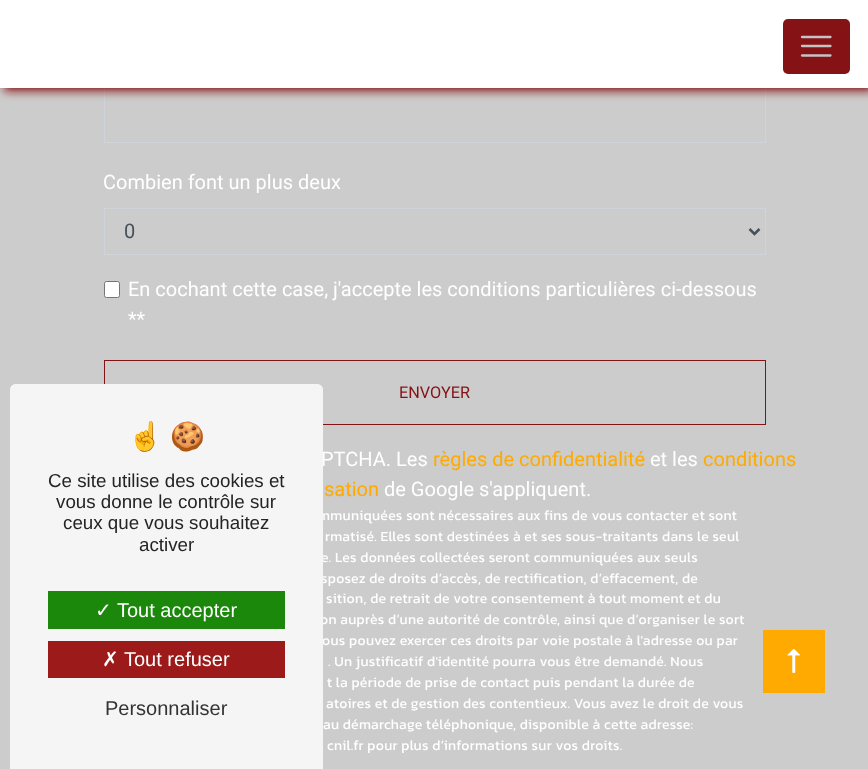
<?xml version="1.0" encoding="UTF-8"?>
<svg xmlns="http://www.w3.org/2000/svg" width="868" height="769">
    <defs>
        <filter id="blur1" x="-50%" y="-200%" width="200%" height="500%"><feGaussianBlur stdDeviation="5"/></filter>
    </defs>
    <rect width="100%" height="100%" fill="#CCCCCC"/>
    <rect x="104.5" y="-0.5" width="661" height="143" fill="none" stroke="#CED4DA"/>
    <rect x="4" y="4" width="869" height="87" fill="#851215" filter="url(#blur1)"/>
    <rect x="0" y="0" width="868" height="88" fill="#FFFFFF"/>
    <rect x="783" y="19" width="67" height="55" rx="5" fill="#851215"/>
    <path d="M 802 37 H 830.5 M 802 46 H 830.5 M 802 55.5 H 830.5" fill="none" stroke="#C4C4C4" stroke-width="2.3" stroke-linecap="round"/>
    <text x="103" y="189" font-family="Roboto" font-size="20" fill="#FFFFFF">Combien font un plus deux</text>
    <rect x="104.5" y="208.5" width="661" height="46" fill="none" stroke="#CED4DA"/>
    <path d="M 749.5 229 L 754.5 234 L 759.5 229" fill="none" stroke="#495057" stroke-width="2.5"/>
    <text x="124" y="238" font-family="Roboto" font-size="20" fill="#495057">0</text>
    <rect x="104.5" y="281.5" width="15" height="16" rx="2" fill="#FFFFFF" stroke="#767676"/>
    <text font-family="Roboto" font-size="20" fill="#FFFFFF">
        <tspan x="128" y="296">En cochant cette case, j'accepte les conditions particulières ci-dessous</tspan>
        <tspan x="128" y="326">**</tspan>
    </text>
    <rect x="104.5" y="360.5" width="661" height="64" fill="none" stroke="#851215"/>
    <text x="399" y="398" font-family="Roboto" font-size="16.25" fill="#851215">ENVOYER</text>
    <text x="321" y="466" font-family="Roboto" font-size="20" fill="#FFFFFF">PTCHA. Les</text>
    <text x="433" y="466" font-family="Roboto" font-size="20" fill="#FEAA00">règles de confidentialité</text>
    <text x="650" y="466" font-family="Roboto" font-size="20" fill="#FFFFFF">et les</text>
    <text x="703" y="466" font-family="Roboto" font-size="20" fill="#FEAA00">conditions</text>
    <text x="324" y="496" font-family="Roboto" font-size="20" fill="#FEAA00">sation</text>
    <text x="384" y="496" font-family="Roboto" font-size="20" fill="#FFFFFF">de Google s'appliquent.</text>
    <text x="318" y="520" font-family="Kanit" font-size="14" letter-spacing="0.28" fill="#FFFFFF">mmuniquées sont nécessaires aux fins de vous contacter et sont</text>
    <text x="325" y="541" font-family="Kanit" font-size="14" letter-spacing="0.28" fill="#FFFFFF">rmatisé. Elles sont destinées à et ses sous-traitants dans le seul</text>
    <text font-family="Kanit" font-size="14" letter-spacing="0.28" fill="#FFFFFF">
        <tspan x="321" y="562">e. Les données collectées seront communiquées aux seuls</tspan>
        <tspan x="321" y="583">sposez de droits d’accès, de rectification, d’effacement, de</tspan>
    </text>
    <text x="326" y="603" font-family="Kanit" font-size="14" letter-spacing="0.28" fill="#FFFFFF">sition, de retrait de votre consentement à tout moment et du</text>
    <text x="320" y="624" font-family="Kanit" font-size="14" letter-spacing="0.28" fill="#FFFFFF">on auprès d’une autorité de contrôle, ainsi que d’organiser le sort</text>
    <text x="322" y="645" font-family="Kanit" font-size="14" letter-spacing="0.28" fill="#FFFFFF">ous pouvez exercer ces droits par voie postale à l'adresse ou par</text>
    <text x="328" y="666" font-family="Kanit" font-size="14" letter-spacing="0.28" fill="#FFFFFF">. Un justificatif d'identité pourra vous être demandé. Nous</text>
    <text x="327" y="687" font-family="Kanit" font-size="14" letter-spacing="0.28" fill="#FFFFFF">t la période de prise de contact puis pendant la durée de</text>
    <text x="326" y="708" font-family="Kanit" font-size="14" letter-spacing="0.28" fill="#FFFFFF">atoires et de gestion des contentieux. Vous avez le droit de vous</text>
    <text x="323" y="729" font-family="Kanit" font-size="14" letter-spacing="0.28" fill="#FFFFFF">au démarchage téléphonique, disponible à cette adresse:</text>
    <text x="327" y="750" font-family="Kanit" font-size="14" letter-spacing="0.28" fill="#FFFFFF">cnil.fr pour plus d’informations sur vos droits.</text>
    <rect x="763" y="630" width="62" height="63" fill="#FEAA00"/>
    <image x="787" y="649" width="14" height="24" href="img_01.png"/>
    <path d="M 16 384 H 317 C 320.5 384 323 386.5 323 390 V 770 H 10 V 390 C 10 386.5 12.5 384 16 384 Z" fill="#F5F5F5"/>
    <text x="128" y="446" font-family="Noto Color Emoji" font-size="28" fill="#242424">☝</text>
    <text x="170" y="446" font-family="Noto Color Emoji" font-size="28" fill="#242424">🍪</text>
    <text x="48" y="487" font-family="Liberation Sans" font-size="18.75" fill="#242424">Ce site utilise des cookies et</text>
    <text x="56" y="508" font-family="Liberation Sans" font-size="18.75" fill="#242424">vous donne le contrôle sur</text>
    <text x="63" y="529" font-family="Liberation Sans" font-size="18.75" fill="#242424">ceux que vous souhaitez</text>
    <text x="139" y="551" font-family="Liberation Sans" font-size="18.75" fill="#242424">activer</text>
    <rect x="48" y="591" width="237" height="38" fill="#1B870B"/>
    <text x="95" y="617" font-family="DejaVu Sans" font-size="20" fill="#FFFFFF">✓</text>
    <text x="117" y="617" font-family="Liberation Sans" font-size="20" fill="#FFFFFF">Tout accepter</text>
    <rect x="48" y="641" width="237" height="37" fill="#9C1A1A"/>
    <text x="102" y="666" font-family="DejaVu Sans" font-size="20" fill="#FFFFFF">✗</text>
    <text x="124" y="666" font-family="Liberation Sans" font-size="20" fill="#FFFFFF">Tout refuser</text>
    <text x="105" y="715" font-family="Liberation Sans" font-size="20" fill="#333333">Personnaliser</text>
</svg>
